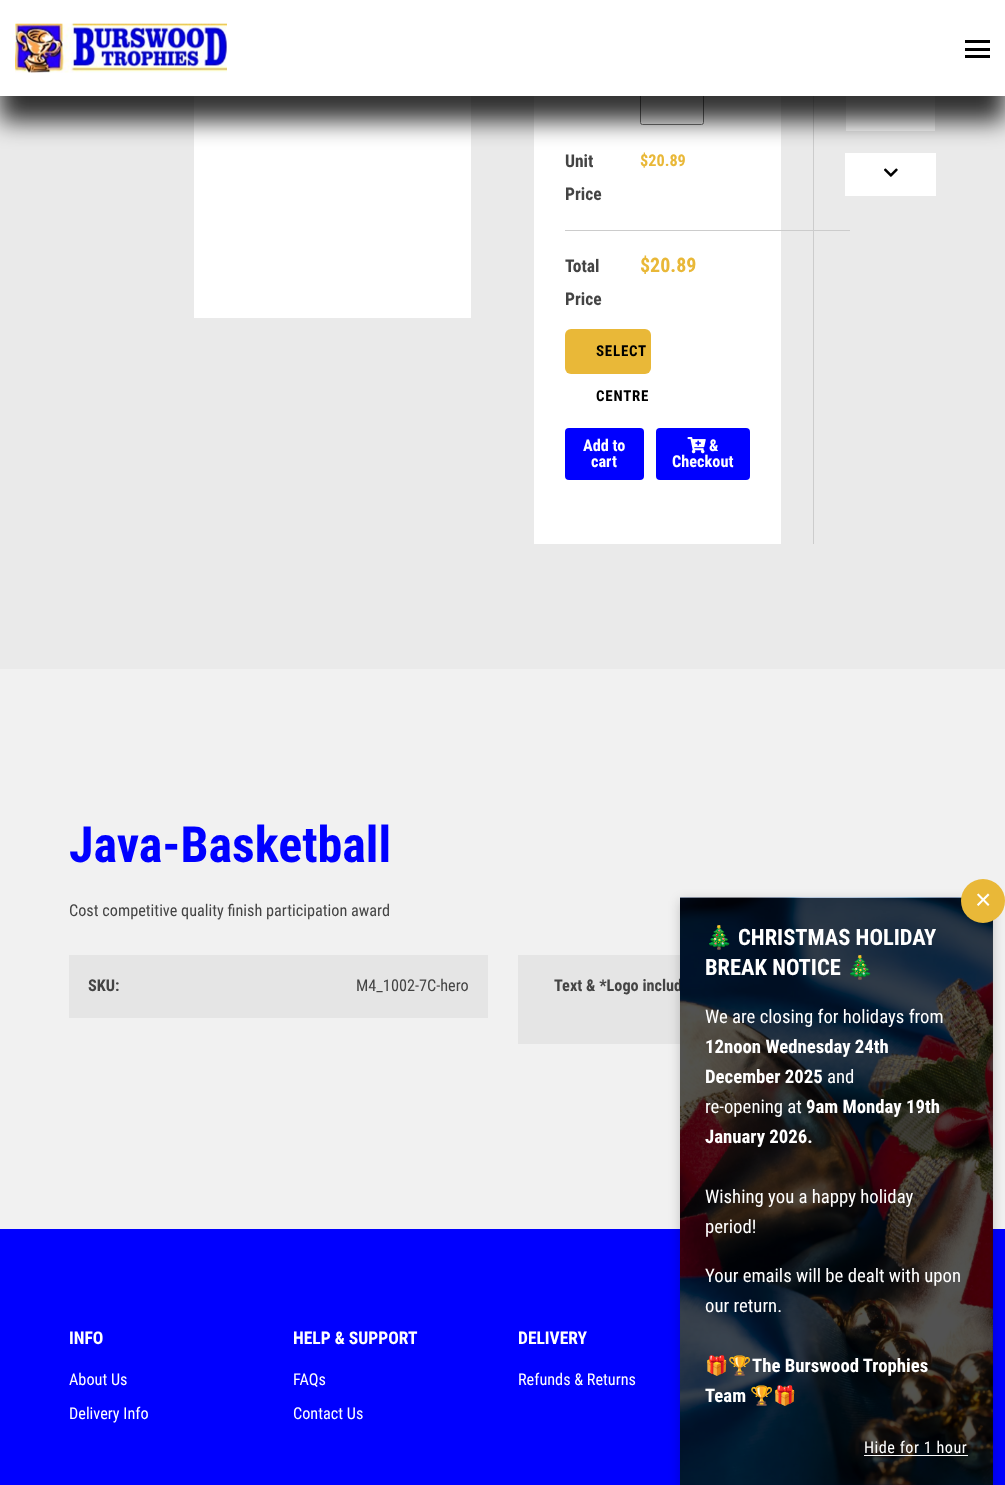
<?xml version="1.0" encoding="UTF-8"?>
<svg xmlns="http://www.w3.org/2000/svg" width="1005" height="1485">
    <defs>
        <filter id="blur1" x="-50%" y="-200%" width="200%" height="500%"><feGaussianBlur stdDeviation="12.5"/></filter>
        <filter id="blur2" x="-50%" y="-200%" width="200%" height="500%"><feGaussianBlur stdDeviation="6"/></filter>
    </defs>
    <rect width="100%" height="100%" fill="#F1F1F1"/>
    <rect x="0" y="96" width="1005" height="573" fill="#EAEAEA"/>
    <rect x="194" y="96" width="277" height="222" fill="#FFFFFF"/>
    <rect x="534" y="96" width="247" height="448" fill="#FFFFFF"/>
    <rect x="640.5" y="85.5" width="63" height="39" rx="2" fill="none" stroke="#767676"/>
    <rect x="813" y="96" width="1" height="448" fill="#CCCCCC"/>
    <rect x="846" y="96" width="89" height="35" fill="#FFFFFF"/>
    <rect x="845" y="153" width="91" height="43" fill="#FFFFFF"/>
    <rect x="0" y="25" width="1005" height="96" fill="#000000" fill-opacity="0.8" filter="url(#blur1)"/>
    <rect x="0" y="0" width="1005" height="96" fill="#FFFFFF"/>
    <image x="15" y="23" width="212" height="50" href="img_01.png"/>
    <rect x="965" y="48" width="25" height="3" fill="#000000"/>
    <rect x="965" y="40" width="25" height="3" fill="#000000"/>
    <rect x="965" y="55" width="25" height="3" fill="#000000"/>
    <text font-family="Roboto Condensed" font-size="17.5" font-weight="700" fill="#444444">
        <tspan x="565" y="167">Unit</tspan>
        <tspan x="565" y="200">Price</tspan>
    </text>
    <text x="640" y="166" font-family="Roboto Condensed" font-size="16.25" font-weight="700" fill="#E9B838">$20.89</text>
    <text font-family="Roboto Condensed" font-size="17.5" font-weight="700" fill="#444444">
        <tspan x="565" y="272">Total</tspan>
        <tspan x="565" y="305">Price</tspan>
    </text>
    <rect x="565" y="230" width="285" height="1" fill="#CCCCCC"/>
    <text x="640" y="272" font-family="Roboto Condensed" font-size="20" font-weight="700" fill="#E9B838">$20.89</text>
    <rect x="565" y="329" width="86" height="45" rx="6" fill="#E9B838"/>
    <text x="596" y="356" font-family="Roboto Condensed" font-size="15" font-weight="700" letter-spacing="0.75" fill="#000000">SELECT</text>
    <text x="596" y="401" font-family="Roboto Condensed" font-size="15" font-weight="700" letter-spacing="0.75" fill="#000000">CENTRE</text>
    <rect x="565" y="428" width="79" height="52" rx="4" fill="#0000FF"/>
    <text x="583" y="451" font-family="Roboto Condensed" font-size="16.25" font-weight="700" fill="#FFFFFF">Add to</text>
    <text x="591" y="467" font-family="Roboto Condensed" font-size="16.25" font-weight="700" fill="#FFFFFF">cart</text>
    <rect x="656" y="428" width="94" height="52" rx="4" fill="#0000FF"/>
    <image x="687" y="437" width="19" height="17" href="img_02.png"/>
    <text x="709" y="451" font-family="Roboto Condensed" font-size="16.25" font-weight="700" fill="#FFFFFF">&amp;</text>
    <text x="672" y="467" font-family="Roboto Condensed" font-size="16.25" font-weight="700" fill="#FFFFFF">Checkout</text>
    <image x="884" y="168" width="14" height="9" href="img_03.png"/>
    <text x="69" y="862" font-family="Roboto Condensed" font-size="50" font-weight="700" fill="#0000FF">Java-Basketball</text>
    <text x="69" y="916" font-family="Roboto Condensed" font-size="16.25" fill="#444444">Cost competitive quality finish participation award</text>
    <rect x="69" y="955" width="419" height="63" fill="#E5E5E5"/>
    <text x="88" y="991" font-family="Roboto Condensed" font-size="16.25" font-weight="700" fill="#444444">SKU:</text>
    <text x="356" y="991" font-family="Roboto Condensed" font-size="16.25" fill="#444444">M4_1002-7C-hero</text>
    <rect x="518" y="955" width="162" height="89" fill="#E5E5E5"/>
    <text x="554" y="991" font-family="Roboto Condensed" font-size="16.25" font-weight="700" fill="#444444">Text &amp; *Logo includ</text>
    <rect x="0" y="1229" width="1005" height="256" fill="#0000FF"/>
    <text x="69" y="1344" font-family="Roboto Condensed" font-size="17.5" font-weight="700" fill="#FFFFFF">INFO</text>
    <text x="69" y="1385" font-family="Roboto Condensed" font-size="16.25" fill="#FFFFFF">About Us</text>
    <text x="69" y="1419" font-family="Roboto Condensed" font-size="16.25" fill="#FFFFFF">Delivery Info</text>
    <text x="293" y="1344" font-family="Roboto Condensed" font-size="17.5" font-weight="700" fill="#FFFFFF">HELP &amp; SUPPORT</text>
    <text x="293" y="1385" font-family="Roboto Condensed" font-size="16.25" fill="#FFFFFF">FAQs</text>
    <text x="293" y="1419" font-family="Roboto Condensed" font-size="16.25" fill="#FFFFFF">Contact Us</text>
    <text x="518" y="1344" font-family="Roboto Condensed" font-size="17.5" font-weight="700" fill="#FFFFFF">DELIVERY</text>
    <text x="518" y="1385" font-family="Roboto Condensed" font-size="16.25" fill="#FFFFFF">Refunds &amp; Returns</text>
    <rect x="680" y="901" width="313" height="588" fill="#000000" fill-opacity="0.2" filter="url(#blur2)"/>
    <image x="680" y="897" width="313" height="588" href="img_04.png"/>
    <rect x="680" y="898" width="313" height="587" fill="#000000" fill-opacity="0.68"/>
    <circle cx="983" cy="901" r="22" fill="#E9B838"/>
    <text x="975" y="909" font-family="Liberation Sans" font-size="28" fill="#FFFFFF">×</text>
    <text x="705" y="945" font-family="Noto Color Emoji" font-size="22.5" font-weight="700" fill="#FFFFFF">🎄</text>
    <text x="738" y="945" font-family="Roboto Condensed" font-size="22.5" font-weight="700" fill="#FFFFFF">CHRISTMAS HOLIDAY</text>
    <text x="705" y="975" font-family="Roboto Condensed" font-size="22.5" font-weight="700" fill="#FFFFFF">BREAK NOTICE</text>
    <text x="846" y="975" font-family="Noto Color Emoji" font-size="22.5" font-weight="700" fill="#FFFFFF">🎄</text>
    <text x="705" y="1023" font-family="Roboto Condensed" font-size="18.75" fill="#FFFFFF">We are closing for holidays from</text>
    <text font-family="Roboto Condensed" font-size="18.75" font-weight="700" fill="#FFFFFF">
        <tspan x="705" y="1053">12noon Wednesday 24th</tspan>
        <tspan x="705" y="1083">December 2025</tspan>
    </text>
    <text x="827" y="1083" font-family="Roboto Condensed" font-size="18.75" fill="#FFFFFF">and</text>
    <text x="705" y="1113" font-family="Roboto Condensed" font-size="18.75" fill="#FFFFFF">re-opening at</text>
    <text x="806" y="1113" font-family="Roboto Condensed" font-size="18.75" font-weight="700" fill="#FFFFFF">9am Monday 19th</text>
    <text x="705" y="1143" font-family="Roboto Condensed" font-size="18.75" font-weight="700" fill="#FFFFFF">January 2026.</text>
    <text font-family="Roboto Condensed" font-size="18.75" fill="#FFFFFF">
        <tspan x="705" y="1203">Wishing you a happy holiday</tspan>
        <tspan x="705" y="1233">period!</tspan>
    </text>
    <text font-family="Roboto Condensed" font-size="18.75" fill="#FFFFFF">
        <tspan x="705" y="1282">Your emails will be dealt with upon</tspan>
        <tspan x="705" y="1312">our return.</tspan>
    </text>
    <text x="705" y="1372" font-family="Noto Color Emoji" font-size="18.75" fill="#FFFFFF">🎁</text>
    <text x="728" y="1372" font-family="Noto Color Emoji" font-size="18.75" fill="#FFFFFF">🏆</text>
    <text x="752" y="1372" font-family="Roboto Condensed" font-size="18.75" font-weight="700" fill="#FFFFFF">The Burswood Trophies</text>
    <text x="705" y="1402" font-family="Roboto Condensed" font-size="18.75" font-weight="700" fill="#FFFFFF">Team</text>
    <text x="750" y="1402" font-family="Noto Color Emoji" font-size="18.75" fill="#FFFFFF">🏆🎁</text>
    <text x="864" y="1453" font-family="Roboto Condensed" font-size="16.25" letter-spacing="0.5" fill="#FFFFFF">Hide for 1 hour</text>
    <rect x="864" y="1455" width="104" height="1" fill="#FEFEFE"/>
</svg>
